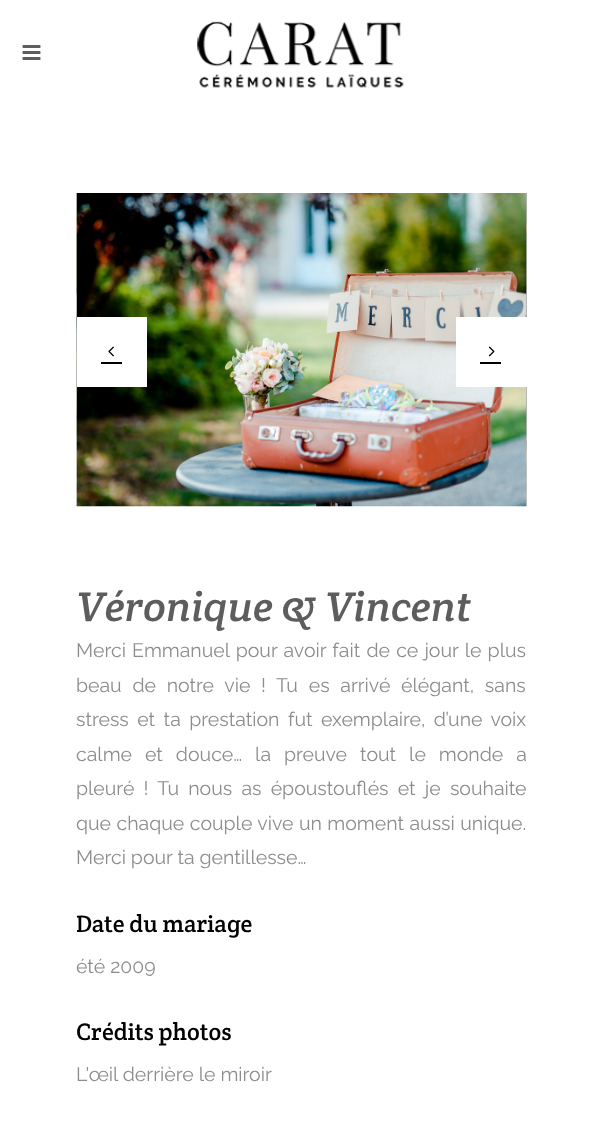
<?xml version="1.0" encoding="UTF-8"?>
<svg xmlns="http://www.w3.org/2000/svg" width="601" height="1147">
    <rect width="100%" height="100%" fill="#FFFFFF"/>
    <image x="22" y="45" width="19" height="15" href="img_01.png"/>
    <image x="197" y="21" width="207" height="67" href="img_02.png"/>
    <image x="76" y="193" width="1" height="314" href="img_03.png"/>
    <image x="76" y="193" width="451" height="314" href="img_04.png"/>
    <image x="526" y="193" width="1" height="314" href="img_05.png"/>
    <rect x="77" y="317" width="70" height="70" fill="#FFFFFF"/>
    <image x="108" y="346" width="6" height="11" href="img_06.png"/>
    <rect x="101" y="362" width="21" height="2" fill="#000000"/>
    <rect x="456" y="317" width="71" height="70" fill="#FFFFFF"/>
    <image x="488" y="346" width="7" height="11" href="img_07.png"/>
    <rect x="480" y="362" width="21" height="2" fill="#000000"/>
    <text x="76" y="621" font-family="Crete Round" font-size="42" font-style="italic" fill="#5D5D5D">Véronique &amp; Vincent</text>
    <text font-family="Raleway" font-size="19.5" fill="#8D8D8D">
        <tspan x="76" y="657" word-spacing="1.25">Merci Emmanuel pour avoir fait de ce jour le plus</tspan>
        <tspan x="76" y="692" word-spacing="5.75">beau de notre vie ! Tu es arrivé élégant, sans</tspan>
        <tspan x="76" y="726" word-spacing="3.5">stress et ta prestation fut exemplaire, d’une voix</tspan>
        <tspan x="76" y="761" word-spacing="8">calme et douce… la preuve tout le monde a</tspan>
        <tspan x="76" y="795" word-spacing="4.25">pleuré ! Tu nous as époustouflés et je souhaite</tspan>
        <tspan x="76" y="830" word-spacing="0.5">que chaque couple vive un moment aussi unique.</tspan>
        <tspan x="76" y="864">Merci pour ta gentillesse…</tspan>
    </text>
    <text x="76" y="932" font-family="Crete Round" font-size="24" fill="#000000">Date du mariage</text>
    <text x="76" y="973" font-family="Raleway" font-size="19.5" fill="#8D8D8D">été 2009</text>
    <text x="76" y="1040" font-family="Crete Round" font-size="24" fill="#000000">Crédits photos</text>
    <text x="76" y="1081" font-family="Raleway" font-size="19.5" fill="#8D8D8D">L'œil derrière le miroir</text>
</svg>
